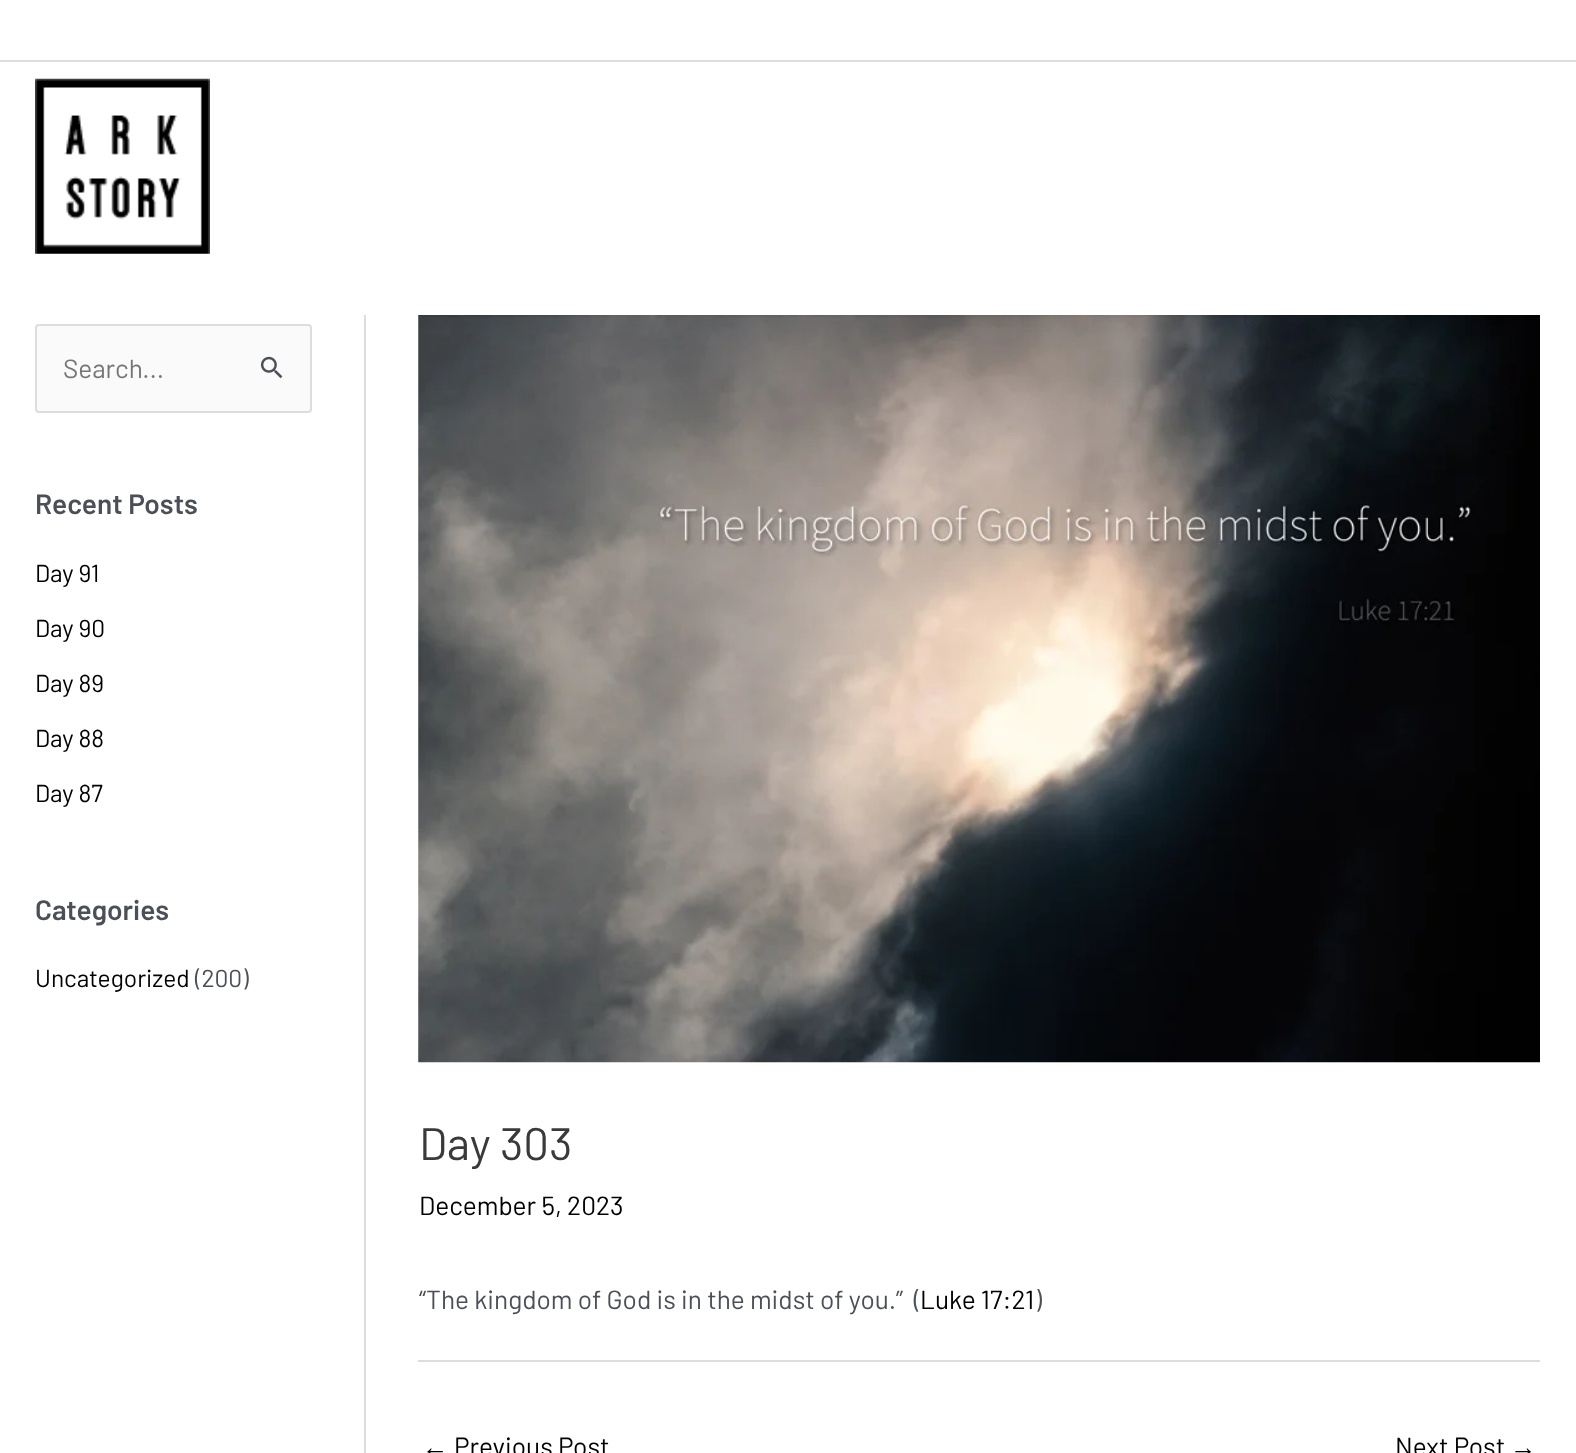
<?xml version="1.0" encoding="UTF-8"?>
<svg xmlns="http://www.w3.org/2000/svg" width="1576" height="1453">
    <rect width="100%" height="100%" fill="#FFFFFF"/>
    <rect x="0" y="60" width="1576" height="2" fill="#DDDDDD"/>
    <image x="35" y="78" width="175" height="176" href="img_01.png"/>
    <rect x="36" y="325" width="275" height="87" rx="3" fill="#FAFAFA" stroke="#DDDDDD" stroke-width="2"/>
    <text x="63" y="378" font-family="Barlow" font-size="26.25" fill="#757575">Search...</text>
    <image x="260" y="356" width="23" height="23" href="img_02.png"/>
    <text x="35" y="514" font-family="Barlow" font-size="28" font-weight="600" fill="#4B4F58">Recent Posts</text>
    <text x="35" y="582" font-family="Barlow" font-size="24.5" fill="#000000">Day 91</text>
    <text x="35" y="637" font-family="Barlow" font-size="24.5" fill="#000000">Day 90</text>
    <text x="35" y="692" font-family="Barlow" font-size="24.5" fill="#000000">Day 89</text>
    <text x="35" y="747" font-family="Barlow" font-size="24.5" fill="#000000">Day 88</text>
    <text x="35" y="802" font-family="Barlow" font-size="24.5" fill="#000000">Day 87</text>
    <text x="35" y="920" font-family="Barlow" font-size="28" font-weight="600" fill="#4B4F58">Categories</text>
    <text x="35" y="987" font-family="Barlow" font-size="24.5" fill="#000000">Uncategorized</text>
    <text x="195" y="987" font-family="Barlow" font-size="24.5" fill="#4B4F58">(200)</text>
    <rect x="364" y="315" width="2" height="1138" fill="#DDDDDD"/>
    <image x="418" y="315" width="1122" height="748" href="img_03.png"/>
    <text x="419" y="1160" font-family="Barlow" font-size="45.5" fill="#3A3A3A">Day 303</text>
    <text x="419" y="1215" font-family="Barlow" font-size="26.25" fill="#000000">December 5, 2023</text>
    <text x="419" y="1309" font-family="Barlow" font-size="26.25" fill="#4B4F58" xml:space="preserve">“The kingdom of God is in the midst of you.”  (</text>
    <text x="920" y="1309" font-family="Barlow" font-size="26.25" fill="#000000">Luke 17:21</text>
    <text x="1035" y="1309" font-family="Barlow" font-size="26.25" fill="#4B4F58">)</text>
    <rect x="418" y="1360" width="1122" height="2" fill="#DDDDDD"/>
    <text x="422" y="1456" font-family="Liberation Sans" font-size="26.25" fill="#000000">←</text>
    <text x="454" y="1456" font-family="Barlow" font-size="26.25" fill="#000000">Previous Post</text>
    <text x="1395" y="1456" font-family="Barlow" font-size="26.25" fill="#000000">Next Post</text>
    <text x="1510" y="1456" font-family="Liberation Sans" font-size="26.25" fill="#000000">→</text>
</svg>
